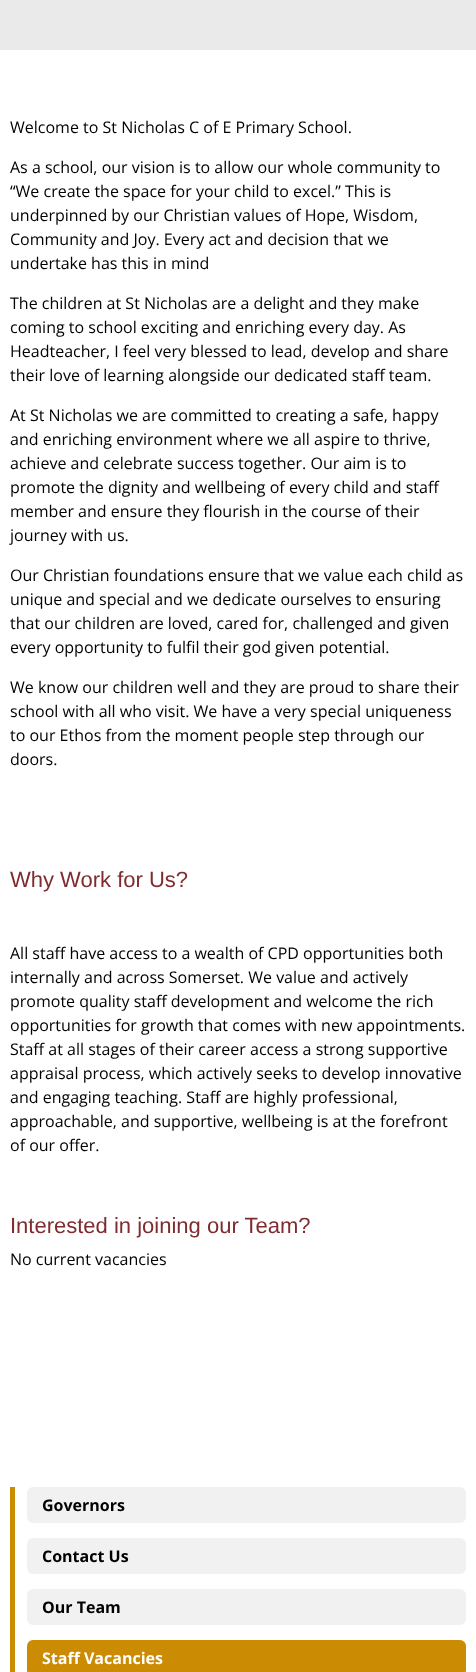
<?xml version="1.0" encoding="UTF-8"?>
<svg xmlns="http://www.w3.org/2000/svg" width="476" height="1672">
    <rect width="100%" height="100%" fill="#FFFFFF"/>
    <rect x="0" y="0" width="476" height="50" fill="#EAEAEA"/>
    <text x="10" y="133" font-family="Open Sans" font-size="16" fill="#000000">Welcome to St Nicholas C of E Primary School.</text>
    <text font-family="Open Sans" font-size="16" fill="#000000">
        <tspan x="10" y="173">As a school, our vision is to allow our whole community to</tspan>
        <tspan x="10" y="197">“We create the space for your child to excel.” This is</tspan>
        <tspan x="10" y="221">underpinned by our Christian values of Hope, Wisdom,</tspan>
        <tspan x="10" y="245">Community and Joy. Every act and decision that we</tspan>
        <tspan x="10" y="269">undertake has this in mind</tspan>
    </text>
    <text font-family="Open Sans" font-size="16" fill="#000000">
        <tspan x="10" y="309">The children at St Nicholas are a delight and they make</tspan>
        <tspan x="10" y="333">coming to school exciting and enriching every day. As</tspan>
        <tspan x="10" y="357">Headteacher, I feel very blessed to lead, develop and share</tspan>
        <tspan x="10" y="381">their love of learning alongside our dedicated staff team.</tspan>
    </text>
    <text font-family="Open Sans" font-size="16" fill="#000000">
        <tspan x="10" y="421">At St Nicholas we are committed to creating a safe, happy</tspan>
        <tspan x="10" y="445">and enriching environment where we all aspire to thrive,</tspan>
        <tspan x="10" y="469">achieve and celebrate success together. Our aim is to</tspan>
        <tspan x="10" y="493">promote the dignity and wellbeing of every child and staff</tspan>
        <tspan x="10" y="517">member and ensure they flourish in the course of their</tspan>
        <tspan x="10" y="541">journey with us.</tspan>
    </text>
    <text font-family="Open Sans" font-size="16" fill="#000000">
        <tspan x="10" y="581">Our Christian foundations ensure that we value each child as</tspan>
        <tspan x="10" y="605">unique and special and we dedicate ourselves to ensuring</tspan>
        <tspan x="10" y="629">that our children are loved, cared for, challenged and given</tspan>
        <tspan x="10" y="653">every opportunity to fulfil their god given potential.</tspan>
    </text>
    <text font-family="Open Sans" font-size="16" fill="#000000">
        <tspan x="10" y="693">We know our children well and they are proud to share their</tspan>
        <tspan x="10" y="717">school with all who visit. We have a very special uniqueness</tspan>
        <tspan x="10" y="741">to our Ethos from the moment people step through our</tspan>
        <tspan x="10" y="765">doors.</tspan>
    </text>
    <text x="10" y="887" font-family="Liberation Sans" font-size="22" fill="#7F2B2F">Why Work for Us?</text>
    <text font-family="Open Sans" font-size="16" fill="#000000">
        <tspan x="10" y="959">All staff have access to a wealth of CPD opportunities both</tspan>
        <tspan x="10" y="983">internally and across Somerset. We value and actively</tspan>
        <tspan x="10" y="1007">promote quality staff development and welcome the rich</tspan>
        <tspan x="10" y="1031">opportunities for growth that comes with new appointments.</tspan>
        <tspan x="10" y="1055">Staff at all stages of their career access a strong supportive</tspan>
        <tspan x="10" y="1079">appraisal process, which actively seeks to develop innovative</tspan>
        <tspan x="10" y="1103">and engaging teaching. Staff are highly professional,</tspan>
        <tspan x="10" y="1127">approachable, and supportive, wellbeing is at the forefront</tspan>
        <tspan x="10" y="1151">of our offer.</tspan>
    </text>
    <text x="10" y="1233" font-family="Liberation Sans" font-size="22" fill="#7F2B2F">Interested in joining our Team?</text>
    <text x="10" y="1265" font-family="Open Sans" font-size="16" fill="#000000">No current vacancies</text>
    <rect x="10" y="1487" width="5" height="185" fill="#CB8C04"/>
    <rect x="27" y="1487" width="439" height="36" rx="6" fill="#F1F1F1"/>
    <text x="42" y="1511" font-family="Open Sans" font-size="16" font-weight="700" fill="#000000">Governors</text>
    <rect x="27" y="1538" width="439" height="36" rx="6" fill="#F1F1F1"/>
    <text x="42" y="1562" font-family="Open Sans" font-size="16" font-weight="700" fill="#000000">Contact Us</text>
    <rect x="27" y="1589" width="439" height="36" rx="6" fill="#F1F1F1"/>
    <text x="42" y="1613" font-family="Open Sans" font-size="16" font-weight="700" fill="#000000">Our Team</text>
    <rect x="27" y="1640" width="439" height="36" rx="6" fill="#CB8C04"/>
    <text x="42" y="1664" font-family="Open Sans" font-size="16" font-weight="700" fill="#FFFFFF">Staff Vacancies</text>
</svg>
